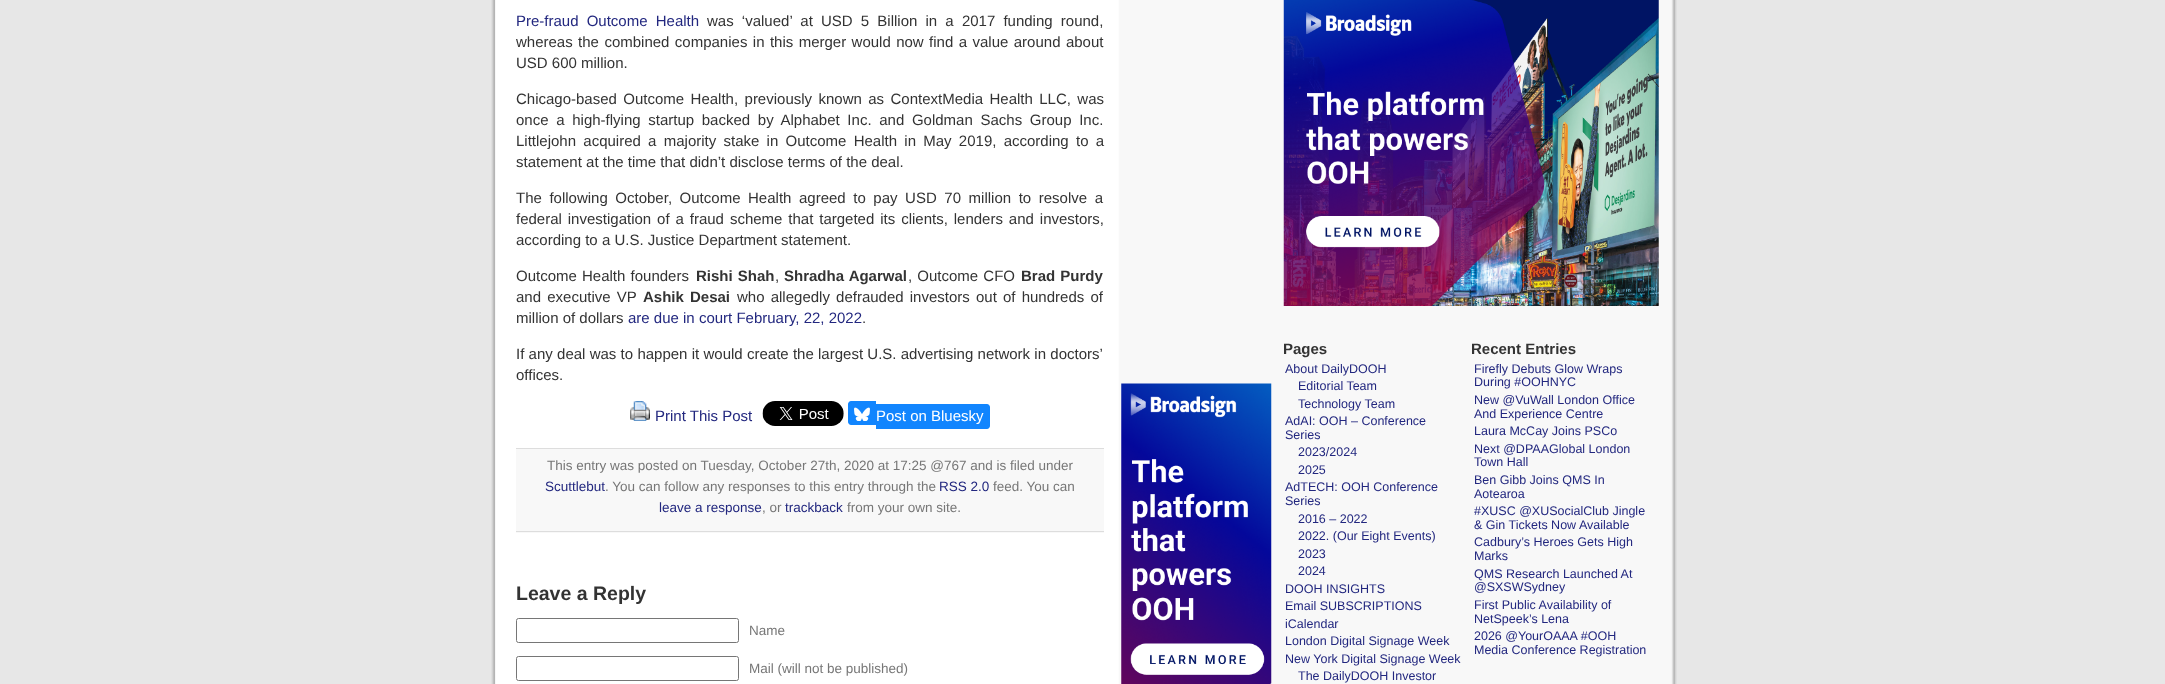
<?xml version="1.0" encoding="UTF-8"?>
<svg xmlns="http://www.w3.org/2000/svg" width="2165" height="684">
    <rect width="100%" height="100%" fill="#E7E7E7"/>
    <image x="491" y="0" width="1186" height="684" href="img_01.png"/>
    <text x="516" y="26" word-spacing="4" font-family="Liberation Sans" font-size="15" fill="#22277F">Pre-fraud Outcome Health</text>
    <text x="707" y="26" word-spacing="4" font-family="Liberation Sans" font-size="15" fill="#333333">was ‘valued’ at USD 5 Billion in a 2017 funding round,</text>
    <text font-family="Liberation Sans" font-size="15" fill="#333333">
        <tspan x="516" y="47" word-spacing="1.25">whereas the combined companies in this merger would now find a value around about</tspan>
        <tspan x="516" y="68">USD 600 million.</tspan>
    </text>
    <text font-family="Liberation Sans" font-size="15" fill="#333333">
        <tspan x="516" y="104" word-spacing="2.25">Chicago-based Outcome Health, previously known as ContextMedia Health LLC, was</tspan>
        <tspan x="516" y="125" word-spacing="3.5">once a high-flying startup backed by Alphabet Inc. and Goldman Sachs Group Inc.</tspan>
        <tspan x="516" y="146" word-spacing="3.1">Littlejohn acquired a majority stake in Outcome Health in May 2019, according to a</tspan>
        <tspan x="516" y="167">statement at the time that didn’t disclose terms of the deal.</tspan>
    </text>
    <text font-family="Liberation Sans" font-size="15" fill="#333333">
        <tspan x="516" y="203" word-spacing="3.4">The following October, Outcome Health agreed to pay USD 70 million to resolve a</tspan>
        <tspan x="516" y="224" word-spacing="1.75">federal investigation of a fraud scheme that targeted its clients, lenders and investors,</tspan>
        <tspan x="516" y="245">according to a U.S. Justice Department statement.</tspan>
    </text>
    <text x="516" y="281" word-spacing="1" font-family="Liberation Sans" font-size="15" fill="#333333">Outcome Health founders</text>
    <text x="696" y="281" word-spacing="1" font-family="Liberation Sans" font-size="15" font-weight="700" fill="#333333">Rishi Shah</text>
    <text x="775" y="281" font-family="Liberation Sans" font-size="15" fill="#333333">,</text>
    <text x="784" y="281" word-spacing="1" font-family="Liberation Sans" font-size="15" font-weight="700" fill="#333333">Shradha Agarwal</text>
    <text x="908" y="281" word-spacing="1" font-family="Liberation Sans" font-size="15" fill="#333333">, Outcome CFO</text>
    <text x="1021" y="281" word-spacing="1" font-family="Liberation Sans" font-size="15" font-weight="700" fill="#333333">Brad Purdy</text>
    <text x="516" y="302" word-spacing="2" font-family="Liberation Sans" font-size="15" fill="#333333">and executive VP</text>
    <text x="643" y="302" word-spacing="2" font-family="Liberation Sans" font-size="15" font-weight="700" fill="#333333">Ashik Desai</text>
    <text x="737" y="302" word-spacing="2" font-family="Liberation Sans" font-size="15" fill="#333333">who allegedly defrauded investors out of hundreds of</text>
    <text x="516" y="323" font-family="Liberation Sans" font-size="15" fill="#333333">million of dollars</text>
    <text x="628" y="323" font-family="Liberation Sans" font-size="15" fill="#22277F">are due in court February, 22, 2022</text>
    <text x="862" y="323" font-family="Liberation Sans" font-size="15" fill="#333333">.</text>
    <text font-family="Liberation Sans" font-size="15" fill="#333333">
        <tspan x="516" y="359" word-spacing="0.1">If any deal was to happen it would create the largest U.S. advertising network in doctors’</tspan>
        <tspan x="516" y="380">offices.</tspan>
    </text>
    <image x="630" y="401" width="20" height="20" href="img_02.png"/>
    <text x="655" y="421" font-family="Liberation Sans" font-size="15" fill="#22277F">Print This Post</text>
    <image x="762" y="401" width="82" height="25" href="img_03.png"/>
    <path d="M 851 401 H 876 V 425 H 851 C 849.5 425 848 423.5 848 422 V 404 C 848 402.5 849.5 401 851 401 Z" fill="#1185FE"/>
    <image x="854" y="407" width="16" height="14" href="img_04.png"/>
    <path d="M 876 404 H 987 C 988.5 404 990 405.5 990 407 V 426 C 990 427.5 988.5 429 987 429 H 876 Z" fill="#1185FE"/>
    <text x="876" y="421" font-family="Liberation Sans" font-size="15" fill="#FFFFFF">Post on Bluesky</text>
    <rect x="516" y="449" width="588" height="84" fill="#F8F8F8"/>
    <rect x="516" y="448" width="588" height="1" fill="#DDDDDD"/>
    <rect x="516" y="531" width="588" height="1" fill="#DDDDDD"/>
    <text x="547" y="470" font-family="Liberation Sans" font-size="13.5" fill="#777777">This entry was posted on Tuesday, October 27th, 2020 at 17:25 @767 and is filed under</text>
    <text x="545" y="491" font-family="Liberation Sans" font-size="13.5" fill="#22277F">Scuttlebut</text>
    <text x="605" y="491" font-family="Liberation Sans" font-size="13.5" fill="#777777">. You can follow any responses to this entry through the</text>
    <text x="939" y="491" font-family="Liberation Sans" font-size="13.5" fill="#22277F">RSS 2.0</text>
    <text x="993" y="491" font-family="Liberation Sans" font-size="13.5" fill="#777777">feed. You can</text>
    <text x="659" y="512" font-family="Liberation Sans" font-size="13.5" fill="#22277F">leave a response</text>
    <text x="762" y="512" font-family="Liberation Sans" font-size="13.5" fill="#777777">, or</text>
    <text x="785" y="512" font-family="Liberation Sans" font-size="13.5" fill="#22277F">trackback</text>
    <text x="847" y="512" font-family="Liberation Sans" font-size="13.5" fill="#777777">from your own site.</text>
    <text x="516" y="600" font-family="Liberation Sans" font-size="19.5" font-weight="700" fill="#333333">Leave a Reply</text>
    <rect x="516.5" y="618.5" width="222" height="24" rx="2" fill="none" stroke="#767676"/>
    <text x="749" y="635" font-family="Liberation Sans" font-size="13.5" fill="#777777">Name</text>
    <rect x="516.5" y="656.5" width="222" height="24" rx="2" fill="none" stroke="#767676"/>
    <text x="749" y="673" font-family="Liberation Sans" font-size="13.5" fill="#777777">Mail (will not be published)</text>
    <image x="1283" y="0" width="376" height="306" href="img_05.png"/>
    <image x="1121" y="383" width="151" height="301" href="img_06.png"/>
    <text x="1283" y="354" font-family="Liberation Sans" font-size="15" font-weight="700" fill="#333333">Pages</text>
    <text x="1285" y="373" font-family="Liberation Sans" font-size="12.5" fill="#22277F">About DailyDOOH</text>
    <text font-family="Liberation Sans" font-size="12.5" fill="#22277F">
        <tspan x="1298" y="390">Editorial Team</tspan>
        <tspan x="1298" y="408">Technology Team</tspan>
    </text>
    <text font-family="Liberation Sans" font-size="12.5" fill="#22277F">
        <tspan x="1285" y="425">AdAI: OOH – Conference</tspan>
        <tspan x="1285" y="439">Series</tspan>
    </text>
    <text font-family="Liberation Sans" font-size="12.5" fill="#22277F">
        <tspan x="1298" y="456">2023/2024</tspan>
        <tspan x="1298" y="474">2025</tspan>
    </text>
    <text font-family="Liberation Sans" font-size="12.5" fill="#22277F">
        <tspan x="1285" y="491">AdTECH: OOH Conference</tspan>
        <tspan x="1285" y="505">Series</tspan>
    </text>
    <text font-family="Liberation Sans" font-size="12.5" fill="#22277F">
        <tspan x="1298" y="523">2016 – 2022</tspan>
        <tspan x="1298" y="540">2022. (Our Eight Events)</tspan>
        <tspan x="1298" y="558">2023</tspan>
        <tspan x="1298" y="575">2024</tspan>
    </text>
    <text font-family="Liberation Sans" font-size="12.5" fill="#22277F">
        <tspan x="1285" y="593">DOOH INSIGHTS</tspan>
        <tspan x="1285" y="610">Email SUBSCRIPTIONS</tspan>
        <tspan x="1285" y="628">iCalendar</tspan>
        <tspan x="1285" y="645">London Digital Signage Week</tspan>
        <tspan x="1285" y="663">New York Digital Signage Week</tspan>
    </text>
    <text x="1298" y="680" font-family="Liberation Sans" font-size="12.5" fill="#22277F">The DailyDOOH Investor</text>
    <text x="1471" y="354" font-family="Liberation Sans" font-size="15" font-weight="700" fill="#333333">Recent Entries</text>
    <text font-family="Liberation Sans" font-size="12.5" fill="#22277F">
        <tspan x="1474" y="373">Firefly Debuts Glow Wraps</tspan>
        <tspan x="1474" y="386">During #OOHNYC</tspan>
        <tspan x="1474" y="404">New @VuWall London Office</tspan>
        <tspan x="1474" y="418">And Experience Centre</tspan>
        <tspan x="1474" y="435">Laura McCay Joins PSCo</tspan>
        <tspan x="1474" y="453">Next @DPAAGlobal London</tspan>
        <tspan x="1474" y="466">Town Hall</tspan>
        <tspan x="1474" y="484">Ben Gibb Joins QMS In</tspan>
        <tspan x="1474" y="498">Aotearoa</tspan>
        <tspan x="1474" y="515">#XUSC @XUSocialClub Jingle</tspan>
        <tspan x="1474" y="529">&amp; Gin Tickets Now Available</tspan>
        <tspan x="1474" y="546">Cadbury’s Heroes Gets High</tspan>
        <tspan x="1474" y="560">Marks</tspan>
        <tspan x="1474" y="578">QMS Research Launched At</tspan>
        <tspan x="1474" y="591">@SXSWSydney</tspan>
        <tspan x="1474" y="609">First Public Availability of</tspan>
        <tspan x="1474" y="623">NetSpeek’s Lena</tspan>
        <tspan x="1474" y="640">2026 @YourOAAA #OOH</tspan>
        <tspan x="1474" y="654">Media Conference Registration</tspan>
    </text>
</svg>
